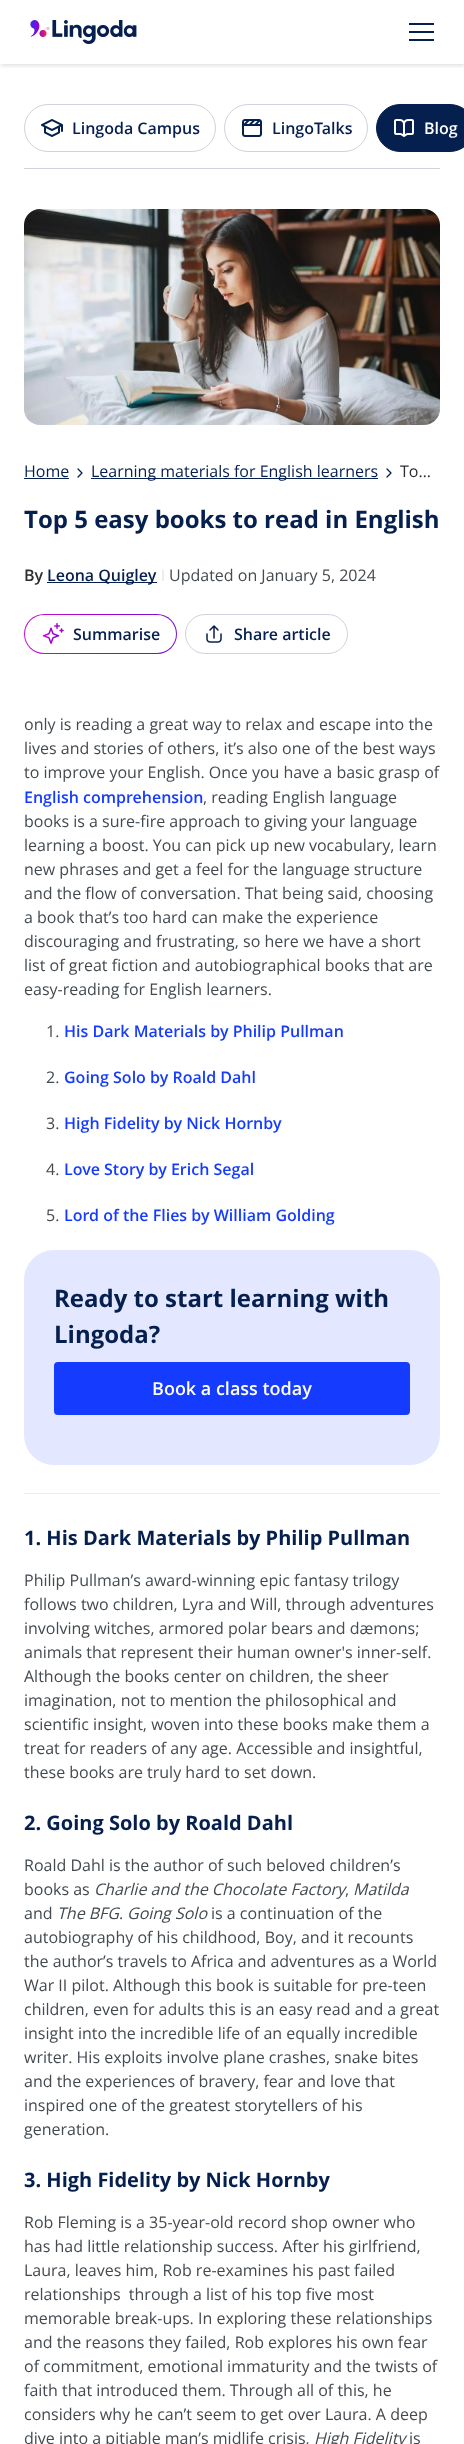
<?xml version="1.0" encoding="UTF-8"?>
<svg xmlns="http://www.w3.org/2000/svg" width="464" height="2444">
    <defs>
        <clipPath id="clip1"><rect x="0" y="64" width="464" height="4"/></clipPath>
        <filter id="blur1" x="-50%" y="-200%" width="200%" height="500%"><feGaussianBlur stdDeviation="2.5"/></filter>
        <clipPath id="clip2"><rect x="24" y="465" width="416" height="18"/></clipPath>
        <linearGradient id="g1" gradientUnits="userSpaceOnUse" x1="24" y1="634" x2="177" y2="634"><stop offset="0" stop-color="#C215CD"/><stop offset="0.51" stop-color="#9E02CD"/><stop offset="1" stop-color="#7A0ED9"/></linearGradient>
    </defs>
    <rect width="100%" height="100%" fill="#FFFFFF"/>
    <g clip-path="url(#clip1)">
        <rect x="1" y="1" width="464" height="64" fill="#000000" fill-opacity="0.16" filter="url(#blur1)"/>
    </g>
    <image x="30" y="20" width="107" height="24" href="img_01.png"/>
    <rect x="409" y="23" width="25" height="2" fill="#051F4E"/>
    <rect x="409" y="31" width="25" height="2" fill="#051F4E"/>
    <rect x="409" y="39" width="25" height="2" fill="#051F4E"/>
    <rect x="24" y="168" width="416" height="1" fill="#CDD2DC"/>
    <rect x="24.5" y="104.5" width="191" height="47" rx="23.5" fill="none" stroke="#CDD2DC"/>
    <image x="41" y="119" width="22" height="18" href="img_02.png"/>
    <text x="72" y="134" font-family="Open Sans" font-size="16" font-weight="600" fill="#051F4E">Lingoda Campus</text>
    <rect x="224.5" y="104.5" width="143" height="47" rx="23.5" fill="none" stroke="#CDD2DC"/>
    <image x="242" y="119" width="20" height="18" href="img_03.png"/>
    <text x="272" y="134" font-family="Open Sans" font-size="16" font-weight="600" fill="#051F4E">LingoTalks</text>
    <rect x="376.5" y="104.5" width="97" height="47" rx="23.5" fill="#051F4E" stroke="#051F4E"/>
    <image x="394" y="119" width="20" height="18" href="img_04.png"/>
    <text x="424" y="134" font-family="Open Sans" font-size="16" font-weight="600" fill="#FFFFFF">Blog</text>
    <image x="24" y="209" width="416" height="216" href="img_05.png"/>
    <text x="24" y="477" font-family="Open Sans" font-size="16" fill="#051F4E">Home</text>
    <rect x="24" y="478" width="45" height="1" fill="#051F4E"/>
    <path d="M 78 469 L 82 473 L 78 477" fill="none" stroke="#051F4E" stroke-width="1.3" stroke-linecap="round" stroke-linejoin="round"/>
    <rect x="91" y="478" width="287" height="1" fill="#051F4E"/>
    <g clip-path="url(#clip2)">
        <text x="91" y="477" font-family="Open Sans" font-size="16" fill="#051F4E">Learning materials for English learners</text>
    </g>
    <path d="M 387 469 L 391 473 L 387 477" fill="none" stroke="#051F4E" stroke-width="1.3" stroke-linecap="round" stroke-linejoin="round"/>
    <text x="400" y="477" font-family="Open Sans" font-size="16" fill="#2D2D32">To…</text>
    <text x="24" y="528" font-family="Open Sans" font-size="24" font-weight="700" fill="#051F4E">Top 5 easy books to read in English</text>
    <text x="24" y="581" font-family="Open Sans" font-size="16" font-weight="600" fill="#2D2D32">By</text>
    <rect x="47" y="582" width="110" height="1" fill="#051F4E"/>
    <text x="47" y="581" font-family="Open Sans" font-size="16" font-weight="600" fill="#051F4E">Leona Quigley</text>
    <text x="160" y="578" font-family="Open Sans" font-size="11" fill="#CDD2DC">|</text>
    <text x="169" y="581" font-family="Open Sans" font-size="16" fill="#434A50">Updated on January 5, 2024</text>
    <rect x="24" y="614" width="153" height="40" rx="20" fill="url(#g1)"/>
    <rect x="25" y="615" width="151" height="38" rx="19" fill="#FFFFFF"/>
    <image x="42" y="623" width="22" height="21" href="img_06.png"/>
    <text x="73" y="640" font-family="Open Sans" font-size="16" font-weight="600" fill="#051F4E">Summarise</text>
    <rect x="185.5" y="614.5" width="162" height="39" rx="19.5" fill="none" stroke="#CDD2DC"/>
    <image x="206" y="625" width="16" height="18" href="img_07.png"/>
    <text x="234" y="640" font-family="Open Sans" font-size="16" font-weight="600" fill="#051F4E">Share article</text>
    <text font-family="Open Sans" font-size="16" fill="#434A50">
        <tspan x="24" y="730">only is reading a great way to relax and escape into the</tspan>
        <tspan x="24" y="754">lives and stories of others, it’s also one of the best ways</tspan>
        <tspan x="24" y="778">to improve your English. Once you have a basic grasp of</tspan>
    </text>
    <text x="24" y="803" font-family="Open Sans" font-size="16" font-weight="600" fill="#153BFF">English comprehension</text>
    <text x="203" y="803" font-family="Open Sans" font-size="16" fill="#434A50">, reading English language</text>
    <text font-family="Open Sans" font-size="16" fill="#434A50">
        <tspan x="24" y="827">books is a sure-fire approach to giving your language</tspan>
        <tspan x="24" y="851">learning a boost. You can pick up new vocabulary, learn</tspan>
        <tspan x="24" y="875">new phrases and get a feel for the language structure</tspan>
        <tspan x="24" y="899">and the flow of conversation. That being said, choosing</tspan>
        <tspan x="24" y="923">a book that’s too hard can make the experience</tspan>
        <tspan x="24" y="947">discouraging and frustrating, so here we have a short</tspan>
        <tspan x="24" y="971">list of great fiction and autobiographical books that are</tspan>
        <tspan x="24" y="995">easy-reading for English learners.</tspan>
    </text>
    <text x="46" y="1037" font-family="Open Sans" font-size="16" fill="#434A50">1.</text>
    <text x="64" y="1037" font-family="Open Sans" font-size="16" font-weight="600" fill="#153BFF">His Dark Materials by Philip Pullman</text>
    <text x="46" y="1083" font-family="Open Sans" font-size="16" fill="#434A50">2.</text>
    <text x="64" y="1083" font-family="Open Sans" font-size="16" font-weight="600" fill="#153BFF">Going Solo by Roald Dahl</text>
    <text x="46" y="1129" font-family="Open Sans" font-size="16" fill="#434A50">3.</text>
    <text x="64" y="1129" font-family="Open Sans" font-size="16" font-weight="600" fill="#153BFF">High Fidelity by Nick Hornby</text>
    <text x="46" y="1175" font-family="Open Sans" font-size="16" fill="#434A50">4.</text>
    <text x="64" y="1175" font-family="Open Sans" font-size="16" font-weight="600" fill="#153BFF">Love Story by Erich Segal</text>
    <text x="46" y="1221" font-family="Open Sans" font-size="16" fill="#434A50">5.</text>
    <text x="64" y="1221" font-family="Open Sans" font-size="16" font-weight="600" fill="#153BFF">Lord of the Flies by William Golding</text>
    <rect x="24" y="1250" width="416" height="215" rx="30" fill="#E3E7FF"/>
    <text font-family="Open Sans" font-size="24" font-weight="700" fill="#051F4E">
        <tspan x="54" y="1307">Ready to start learning with</tspan>
        <tspan x="54" y="1343">Lingoda?</tspan>
    </text>
    <rect x="55.5" y="1363.5" width="353" height="50" rx="2.5" fill="#153BFF" stroke="#153BFF" stroke-width="3"/>
    <text x="152" y="1395" font-family="Open Sans" font-size="18" font-weight="600" fill="#FFFFFF">Book a class today</text>
    <rect x="24" y="1493" width="416" height="1" fill="#EBEDF1"/>
    <text x="24" y="1545" font-family="Open Sans" font-size="20" font-weight="700" fill="#051F4E">1. His Dark Materials by Philip Pullman</text>
    <text font-family="Open Sans" font-size="16" fill="#434A50">
        <tspan x="24" y="1586">Philip Pullman’s award-winning epic fantasy trilogy</tspan>
        <tspan x="24" y="1610">follows two children, Lyra and Will, through adventures</tspan>
        <tspan x="24" y="1634">involving witches, armored polar bears and dæmons;</tspan>
        <tspan x="24" y="1658">animals that represent their human owner's inner-self.</tspan>
        <tspan x="24" y="1682">Although the books center on children, the sheer</tspan>
        <tspan x="24" y="1706">imagination, not to mention the philosophical and</tspan>
        <tspan x="24" y="1730">scientific insight, woven into these books make them a</tspan>
        <tspan x="24" y="1754">treat for readers of any age. Accessible and insightful,</tspan>
        <tspan x="24" y="1778">these books are truly hard to set down.</tspan>
    </text>
    <text x="24" y="1830" font-family="Open Sans" font-size="20" font-weight="700" fill="#051F4E">2. Going Solo by Roald Dahl</text>
    <text font-family="Open Sans" font-size="16" fill="#434A50">
        <tspan x="24" y="1871">Roald Dahl is the author of such beloved children’s</tspan>
        <tspan x="24" y="1895">books as</tspan>
    </text>
    <text x="94" y="1895" font-family="Open Sans" font-size="16" font-style="italic" fill="#434A50">Charlie and the Chocolate Factory</text>
    <text x="353" y="1895" font-family="Open Sans" font-size="16" font-style="italic" fill="#434A50">Matilda</text>
    <text x="345" y="1895" font-family="Open Sans" font-size="16" fill="#434A50">,</text>
    <text x="24" y="1919" font-family="Open Sans" font-size="16" fill="#434A50">and</text>
    <text x="57" y="1919" font-family="Open Sans" font-size="16" font-style="italic" fill="#434A50">The BFG</text>
    <text x="119" y="1919" font-family="Open Sans" font-size="16" fill="#434A50">.</text>
    <text x="127" y="1919" font-family="Open Sans" font-size="16" font-style="italic" fill="#434A50">Going Solo</text>
    <text x="211" y="1919" font-family="Open Sans" font-size="16" fill="#434A50">is a continuation of the</text>
    <text font-family="Open Sans" font-size="16" fill="#434A50">
        <tspan x="24" y="1943">autobiography of his childhood, Boy, and it recounts</tspan>
        <tspan x="24" y="1967">the author’s travels to Africa and adventures as a World</tspan>
        <tspan x="24" y="1991">War II pilot. Although this book is suitable for pre-teen</tspan>
        <tspan x="24" y="2015">children, even for adults this is an easy read and a great</tspan>
        <tspan x="24" y="2039">insight into the incredible life of an equally incredible</tspan>
        <tspan x="24" y="2063">writer. His exploits involve plane crashes, snake bites</tspan>
        <tspan x="24" y="2087">and the experiences of bravery, fear and love that</tspan>
        <tspan x="24" y="2111">inspired one of the greatest storytellers of his</tspan>
        <tspan x="24" y="2135">generation.</tspan>
    </text>
    <text x="24" y="2187" font-family="Open Sans" font-size="20" font-weight="700" fill="#051F4E">3. High Fidelity by Nick Hornby</text>
    <text font-family="Open Sans" font-size="16" fill="#434A50" xml:space="preserve"><tspan x="24" y="2228">Rob Fleming is a 35-year-old record shop owner who</tspan><tspan x="24" y="2252">has had little relationship success. After his girlfriend,</tspan><tspan x="24" y="2276">Laura, leaves him, Rob re-examines his past failed</tspan><tspan x="24" y="2300">relationships  through a list of his top five most</tspan><tspan x="24" y="2324">memorable break-ups. In exploring these relationships</tspan><tspan x="24" y="2348">and the reasons they failed, Rob explores his own fear</tspan><tspan x="24" y="2372">of commitment, emotional immaturity and the twists of</tspan><tspan x="24" y="2396">faith that introduced them. Through all of this, he</tspan><tspan x="24" y="2420">considers why he can’t seem to get over Laura. A deep</tspan><tspan x="24" y="2444">dive into a pitiable man’s midlife crisis,</tspan></text>
    <text x="314" y="2444" font-family="Open Sans" font-size="16" font-style="italic" fill="#434A50">High Fidelity</text>
    <text x="409" y="2444" font-family="Open Sans" font-size="16" fill="#434A50">is</text>
</svg>
